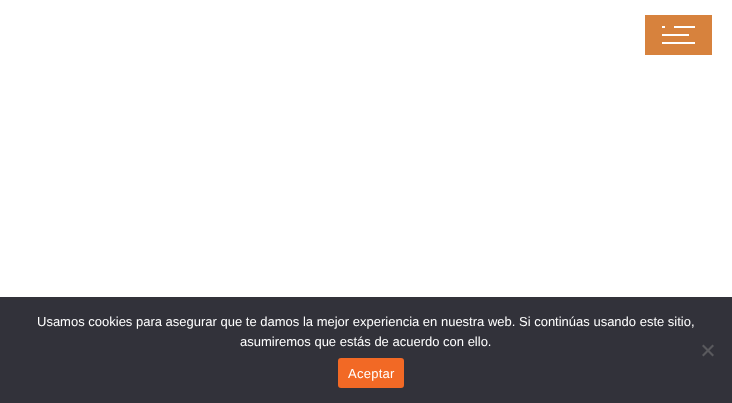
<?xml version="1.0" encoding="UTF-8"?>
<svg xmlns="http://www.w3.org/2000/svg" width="732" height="403">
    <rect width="100%" height="100%" fill="#FFFFFF"/>
    <rect x="645" y="15" width="67" height="40" fill="#D7823D"/>
    <rect x="662" y="26" width="3" height="2" fill="#FFFFFF"/>
    <rect x="674" y="26" width="21" height="2" fill="#FFFFFF"/>
    <rect x="662" y="34" width="27" height="2" fill="#FFFFFF"/>
    <rect x="662" y="42" width="33" height="2" fill="#FFFFFF"/>
    <rect x="0" y="297" width="732" height="106" fill="#32323A"/>
    <text x="37" y="326" font-family="Liberation Sans" font-size="13" fill="#FFFFFF">Usamos cookies para asegurar que te damos la mejor experiencia en nuestra web. Si continúas usando este sitio,</text>
    <text x="240" y="346" font-family="Liberation Sans" font-size="13" fill="#FFFFFF">asumiremos que estás de acuerdo con ello.</text>
    <path d="M 712.5 344.5 L 714 346 L 703.5 356.5 L 702 355 Z" fill="#59595D"/>
    <path d="M 702 346 L 703.5 344.5 L 714 355 L 712.5 356.5 Z" fill="#59595D"/>
    <rect x="338" y="358" width="66" height="30" rx="3" fill="#F26925"/>
    <text x="348" y="378" font-family="Liberation Sans" font-size="13" letter-spacing="0.25" fill="#FFFFFF">Aceptar</text>
</svg>
